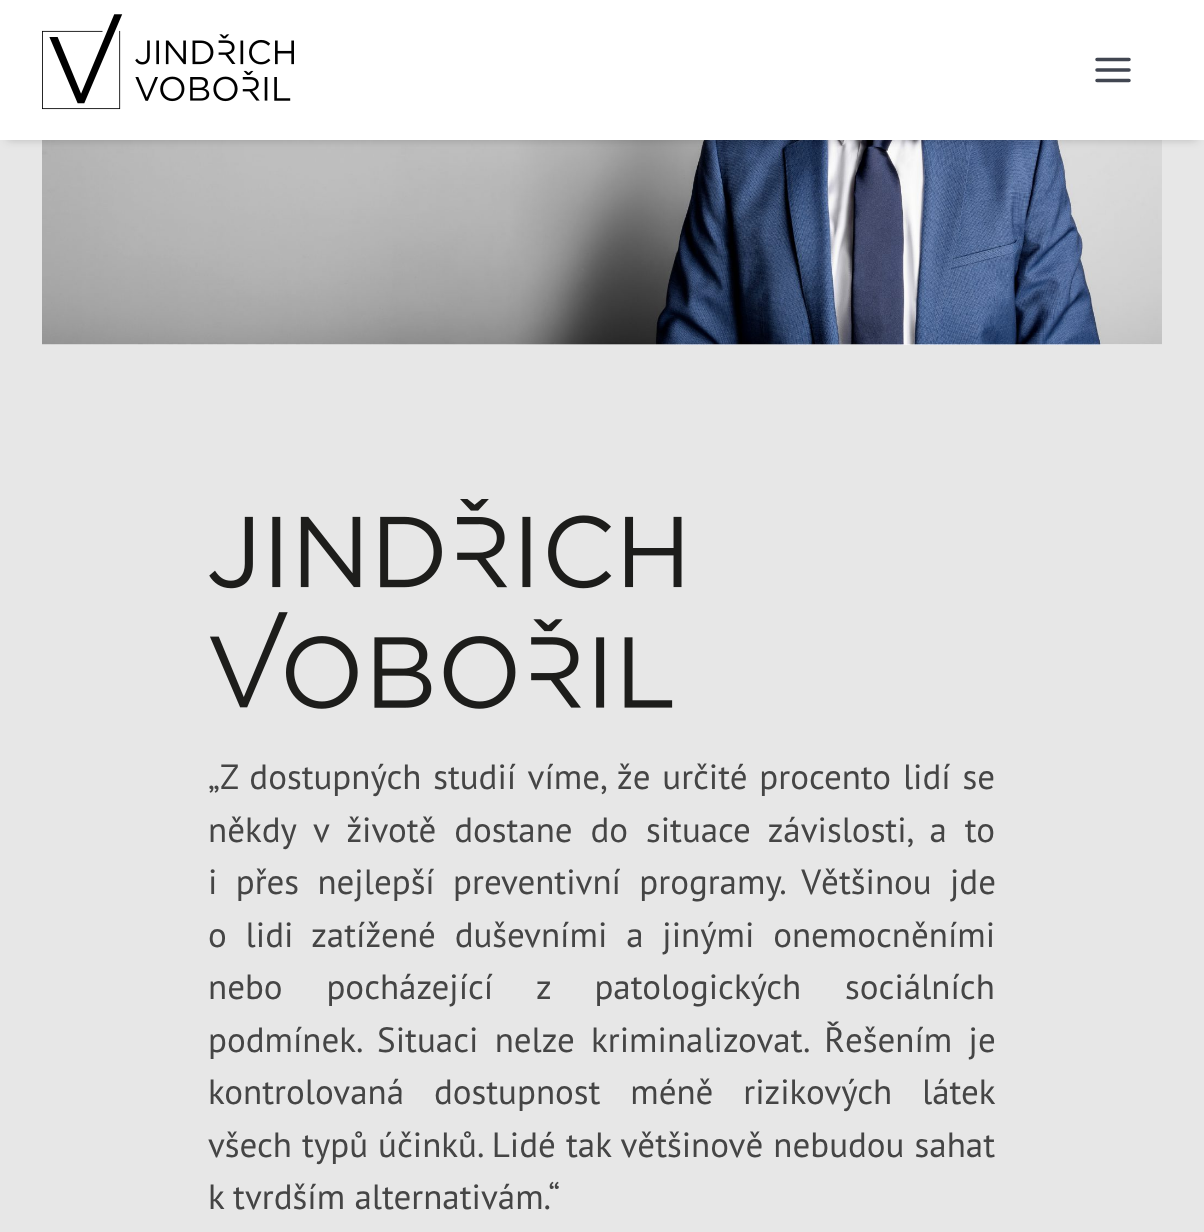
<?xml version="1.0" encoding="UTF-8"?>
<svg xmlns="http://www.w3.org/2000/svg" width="1204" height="1232">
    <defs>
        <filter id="blur1" x="-50%" y="-200%" width="200%" height="500%"><feGaussianBlur stdDeviation="5"/></filter>
    </defs>
    <rect width="100%" height="100%" fill="#E7E7E7"/>
    <image x="42" y="140" width="1120" height="205" href="img_02.png"/>
    <rect x="7" y="14" width="1190" height="126" fill="#000000" fill-opacity="0.2" filter="url(#blur1)"/>
    <rect x="0" y="0" width="1204" height="140" fill="#FFFFFF"/>
    <image x="42" y="14" width="252" height="96" href="img_01.png"/>
    <path d="M 1097 70 H 1129 M 1097 59.5 H 1129 M 1097 80.5 H 1129" fill="none" stroke="#414651" stroke-width="3.5" stroke-linecap="round" stroke-linejoin="round"/>
    <image x="209" y="499" width="473" height="210" href="img_03.png"/>
    <text font-family="PT Sans" font-size="35" fill="#454545">
        <tspan x="208" y="789" word-spacing="2.5">„Z dostupných studií víme, že určité procento lidí se</tspan>
        <tspan x="208" y="842" word-spacing="8.5">někdy v životě dostane do situace závislosti, a to</tspan>
        <tspan x="208" y="894" word-spacing="9">i přes nejlepší preventivní programy. Většinou jde</tspan>
        <tspan x="208" y="947" word-spacing="9.5">o lidi zatížené duševními a jinými onemocněními</tspan>
        <tspan x="208" y="999" word-spacing="34.5">nebo pocházející z patologických sociálních</tspan>
        <tspan x="208" y="1052" word-spacing="7">podmínek. Situaci nelze kriminalizovat. Řešením je</tspan>
        <tspan x="208" y="1104" word-spacing="20.5">kontrolovaná dostupnost méně rizikových látek</tspan>
        <tspan x="208" y="1157" word-spacing="0.75">všech typů účinků. Lidé tak většinově nebudou sahat</tspan>
        <tspan x="208" y="1209">k tvrdším alternativám.“</tspan>
    </text>
</svg>
